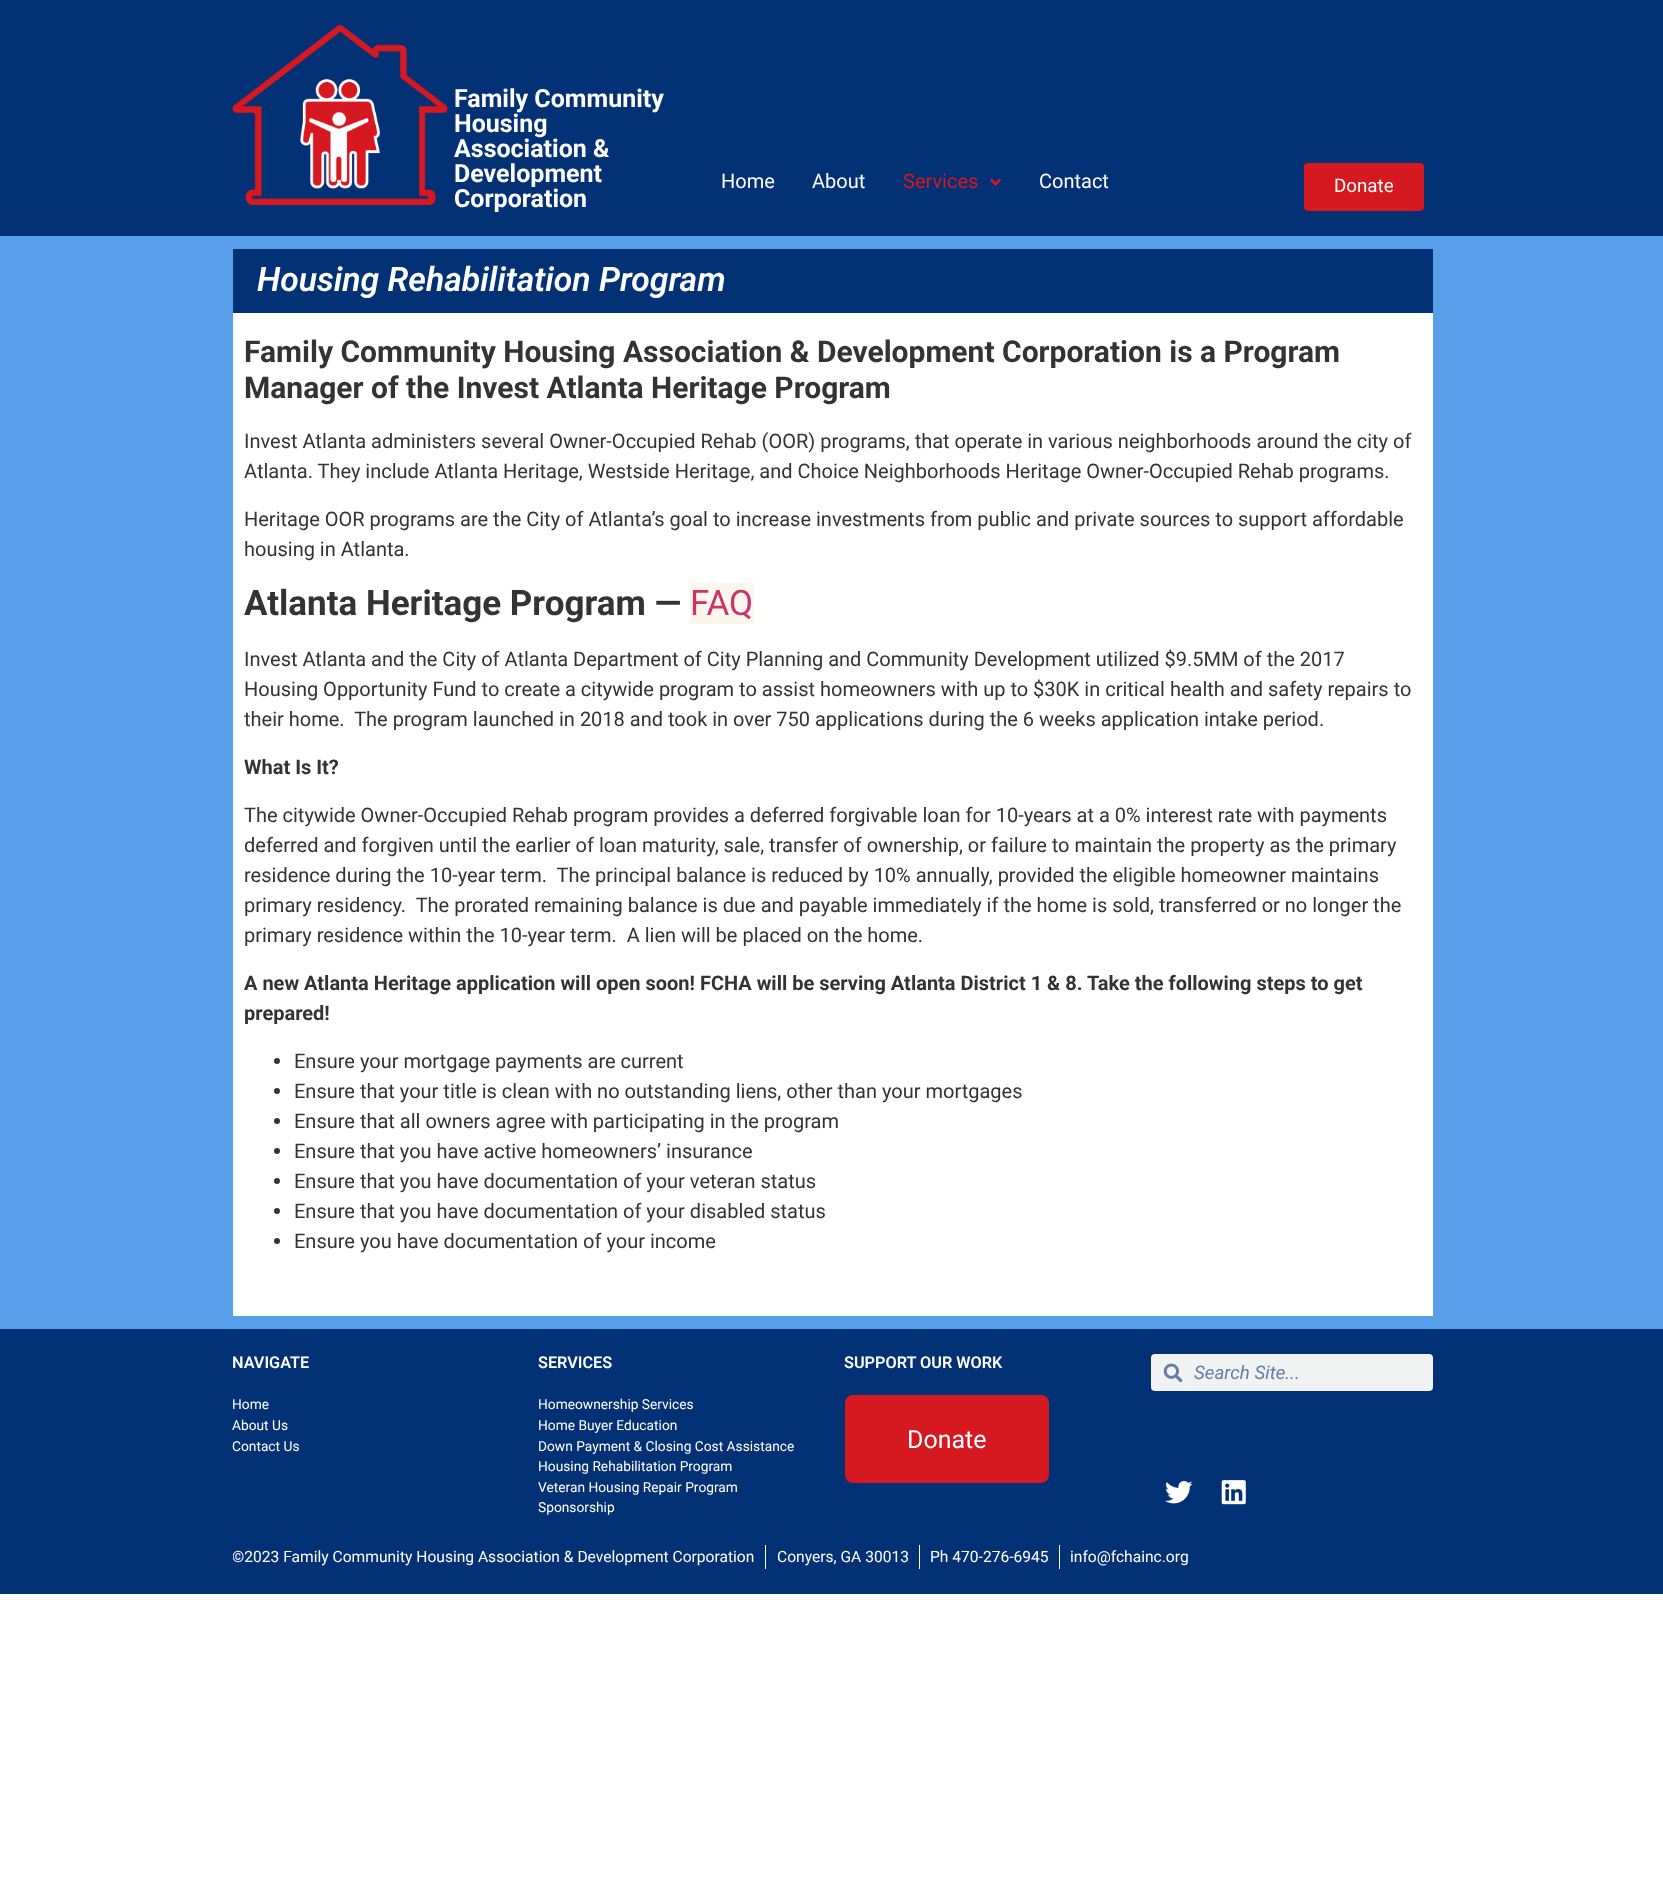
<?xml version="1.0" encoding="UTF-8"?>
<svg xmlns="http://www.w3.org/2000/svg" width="1663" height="1901">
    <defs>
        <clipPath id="clip1"><rect x="233" y="1545" width="1200" height="24"/></clipPath>
    </defs>
    <rect width="100%" height="100%" fill="#FFFFFF"/>
    <rect x="0" y="0" width="1663" height="236" fill="#033176"/>
    <image x="232" y="25" width="216" height="180" href="img_01.png"/>
    <text font-family="Roboto" font-size="25" font-weight="700" fill="#FFFFFD">
        <tspan x="454" y="107">Family Community</tspan>
        <tspan x="454" y="132">Housing</tspan>
        <tspan x="454" y="157">Association &amp;</tspan>
        <tspan x="454" y="182">Development</tspan>
        <tspan x="454" y="207">Corporation</tspan>
    </text>
    <text x="721" y="188" font-family="Roboto" font-size="20" fill="#FFFFFD">Home</text>
    <text x="812" y="188" font-family="Roboto" font-size="20" fill="#FFFFFD">About</text>
    <text x="903" y="188" font-family="Roboto" font-size="20" fill="#D61821">Services</text>
    <image x="990" y="178" width="11" height="8" href="img_02.png"/>
    <text x="1039" y="188" font-family="Roboto" font-size="20" fill="#FFFFFD">Contact</text>
    <rect x="1304" y="163" width="120" height="48" rx="4" fill="#D61821"/>
    <text x="1334" y="192" font-family="Roboto" font-size="18.75" fill="#FFFFFD">Donate</text>
    <rect x="0" y="236" width="1663" height="1093" fill="#57A0E9"/>
    <rect x="233" y="249" width="1200" height="64" fill="#033176"/>
    <text x="257" y="291" font-family="Roboto" font-size="33.75" font-weight="600" font-style="italic" fill="#FFFFFD">Housing Rehabilitation Program</text>
    <rect x="233" y="313" width="1200" height="1003" fill="#FFFFFF"/>
    <text font-family="Roboto" font-size="30" font-weight="700" fill="#333333">
        <tspan x="244" y="362">Family Community Housing Association &amp; Development Corporation is a Program</tspan>
        <tspan x="244" y="398">Manager of the Invest Atlanta Heritage Program</tspan>
    </text>
    <text font-family="Roboto" font-size="20" fill="#333333">
        <tspan x="244" y="448">Invest Atlanta administers several Owner-Occupied Rehab (OOR) programs, that operate in various neighborhoods around the city of</tspan>
        <tspan x="244" y="478">Atlanta. They include Atlanta Heritage, Westside Heritage, and Choice Neighborhoods Heritage Owner-Occupied Rehab programs.</tspan>
    </text>
    <text font-family="Roboto" font-size="20" fill="#333333">
        <tspan x="244" y="526">Heritage OOR programs are the City of Atlanta’s goal to increase investments from public and private sources to support affordable</tspan>
        <tspan x="244" y="556">housing in Atlanta.</tspan>
    </text>
    <text x="244" y="615" font-family="Roboto" font-size="35" font-weight="700" fill="#333333">Atlanta Heritage Program —</text>
    <rect x="690" y="583" width="64" height="41" fill="#FBF7EE"/>
    <text x="690" y="615" font-family="Roboto" font-size="35" fill="#CC3366">FAQ</text>
    <text font-family="Roboto" font-size="20" fill="#333333" xml:space="preserve"><tspan x="244" y="666">Invest Atlanta and the City of Atlanta Department of City Planning and Community Development utilized $9.5MM of the 2017</tspan><tspan x="244" y="696">Housing Opportunity Fund to create a citywide program to assist homeowners with up to $30K in critical health and safety repairs to</tspan><tspan x="244" y="726">their home.  The program launched in 2018 and took in over 750 applications during the 6 weeks application intake period.</tspan></text>
    <text x="244" y="774" font-family="Roboto" font-size="20" font-weight="700" fill="#333333">What Is It?</text>
    <text font-family="Roboto" font-size="20" fill="#333333" xml:space="preserve"><tspan x="244" y="822">The citywide Owner-Occupied Rehab program provides a deferred forgivable loan for 10-years at a 0% interest rate with payments</tspan><tspan x="244" y="852">deferred and forgiven until the earlier of loan maturity, sale, transfer of ownership, or failure to maintain the property as the primary</tspan><tspan x="244" y="882">residence during the 10-year term.  The principal balance is reduced by 10% annually, provided the eligible homeowner maintains</tspan><tspan x="244" y="912">primary residency.  The prorated remaining balance is due and payable immediately if the home is sold, transferred or no longer the</tspan><tspan x="244" y="942">primary residence within the 10-year term.  A lien will be placed on the home.</tspan></text>
    <text font-family="Roboto" font-size="20" font-weight="700" fill="#333333">
        <tspan x="244" y="990">A new Atlanta Heritage application will open soon! FCHA will be serving Atlanta District 1 &amp; 8. Take the following steps to get</tspan>
        <tspan x="244" y="1020">prepared!</tspan>
    </text>
    <circle cx="277" cy="1061" r="3" fill="#333333"/>
    <text x="294" y="1068" font-family="Roboto" font-size="20" fill="#333333">Ensure your mortgage payments are current</text>
    <circle cx="277" cy="1091" r="3" fill="#333333"/>
    <text x="294" y="1098" font-family="Roboto" font-size="20" fill="#333333">Ensure that your title is clean with no outstanding liens, other than your mortgages</text>
    <circle cx="277" cy="1121" r="3" fill="#333333"/>
    <text x="294" y="1128" font-family="Roboto" font-size="20" fill="#333333">Ensure that all owners agree with participating in the program</text>
    <circle cx="277" cy="1151" r="3" fill="#333333"/>
    <text x="294" y="1158" font-family="Roboto" font-size="20" fill="#333333">Ensure that you have active homeowners’ insurance</text>
    <circle cx="277" cy="1181" r="3" fill="#333333"/>
    <text x="294" y="1188" font-family="Roboto" font-size="20" fill="#333333">Ensure that you have documentation of your veteran status</text>
    <circle cx="277" cy="1211" r="3" fill="#333333"/>
    <text x="294" y="1218" font-family="Roboto" font-size="20" fill="#333333">Ensure that you have documentation of your disabled status</text>
    <circle cx="277" cy="1241" r="3" fill="#333333"/>
    <text x="294" y="1248" font-family="Roboto" font-size="20" fill="#333333">Ensure you have documentation of your income</text>
    <rect x="0" y="1329" width="1663" height="265" fill="#033176"/>
    <text x="232" y="1368" font-family="Roboto" font-size="16.25" font-weight="600" fill="#FFFFFD">NAVIGATE</text>
    <text font-family="Roboto" font-size="13.75" fill="#FFFFFD">
        <tspan x="232" y="1409">Home</tspan>
        <tspan x="232" y="1430">About Us</tspan>
        <tspan x="232" y="1451">Contact Us</tspan>
    </text>
    <text x="538" y="1368" font-family="Roboto" font-size="16.25" font-weight="600" fill="#FFFFFD">SERVICES</text>
    <text font-family="Roboto" font-size="13.75" fill="#FFFFFD">
        <tspan x="538" y="1409">Homeownership Services</tspan>
        <tspan x="538" y="1430">Home Buyer Education</tspan>
        <tspan x="538" y="1451">Down Payment &amp; Closing Cost Assistance</tspan>
        <tspan x="538" y="1471">Housing Rehabilitation Program</tspan>
        <tspan x="538" y="1492">Veteran Housing Repair Program</tspan>
        <tspan x="538" y="1512">Sponsorship</tspan>
    </text>
    <text x="844" y="1368" font-family="Roboto" font-size="16.25" font-weight="600" fill="#FFFFFD">SUPPORT OUR WORK</text>
    <rect x="845" y="1395" width="204" height="88" rx="8" fill="#D61821"/>
    <text x="907" y="1448" font-family="Roboto" font-size="25" fill="#FFFFFD">Donate</text>
    <rect x="1151" y="1354" width="282" height="37" rx="4" fill="#F1F2F3"/>
    <image x="1163" y="1363" width="20" height="20" href="img_03.png"/>
    <text x="1194" y="1379" font-family="Roboto" font-size="18.75" font-style="italic" fill="#627EA8">Search Site...</text>
    <image x="1165" y="1481" width="28" height="23" href="img_04.png"/>
    <image x="1221" y="1480" width="25" height="25" href="img_05.png"/>
    <g clip-path="url(#clip1)">
        <text x="232" y="1562" font-family="Roboto" font-size="15.6" fill="#FFFFFD">©2023 Family Community Housing Association &amp; Development Corporation</text>
    </g>
    <rect x="765" y="1545" width="1" height="24" fill="#FFFFFD"/>
    <text x="777" y="1562" font-family="Roboto" font-size="15.6" fill="#FFFFFD">Conyers, GA 30013</text>
    <rect x="919" y="1545" width="1" height="24" fill="#FFFFFD"/>
    <text x="930" y="1562" font-family="Roboto" font-size="15.6" fill="#FFFFFD">Ph 470-276-6945</text>
    <rect x="1059" y="1545" width="1" height="24" fill="#FFFFFD"/>
    <text x="1070" y="1562" font-family="Roboto" font-size="15.6" fill="#FFFFFD">info@fchainc.org</text>
</svg>
